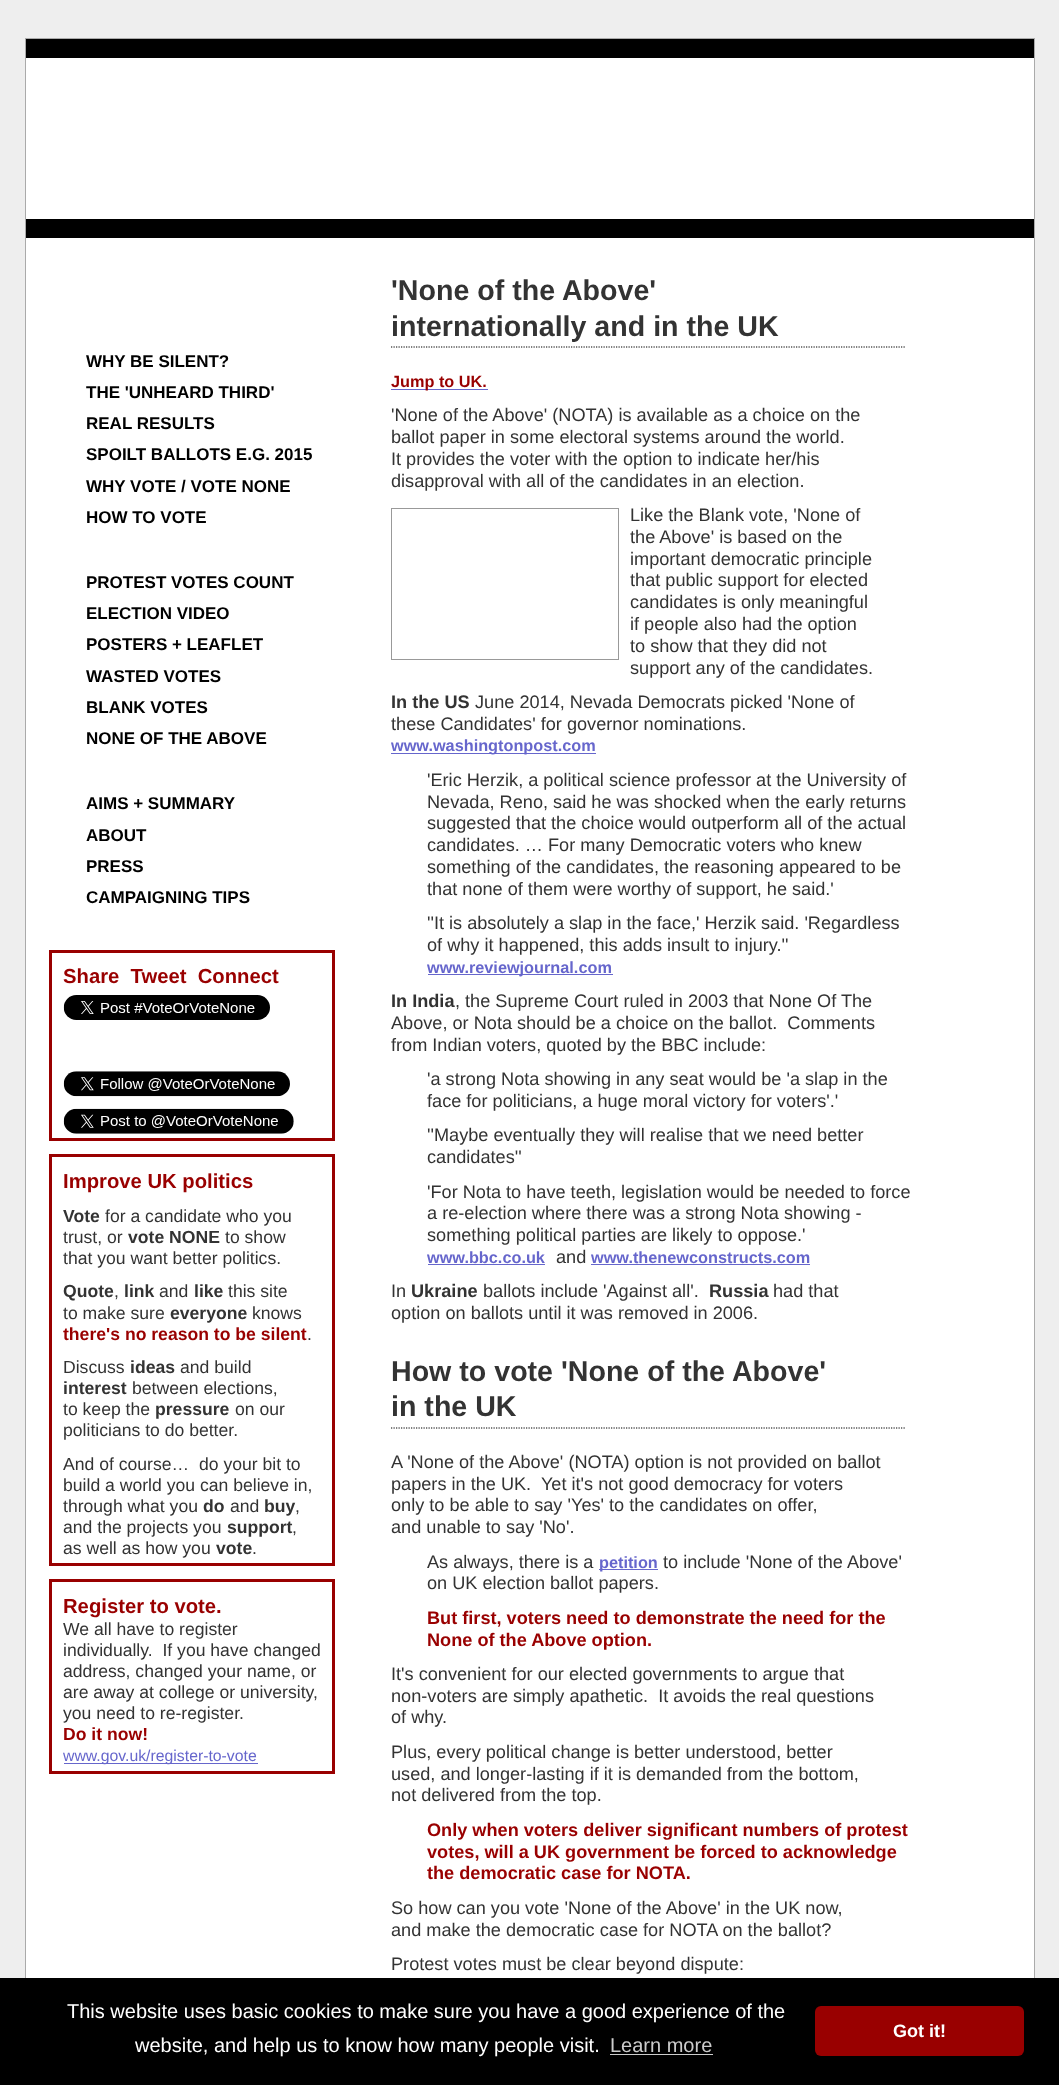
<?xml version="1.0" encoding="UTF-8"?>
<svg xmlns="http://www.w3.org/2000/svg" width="1059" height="2085">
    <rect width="100%" height="100%" fill="#EEEEEE"/>
    <rect x="26" y="58" width="1008" height="1920" fill="#FFFFFF"/>
    <rect x="25" y="38" width="1010" height="1" fill="#AAAAAA"/>
    <rect x="1034" y="38" width="1" height="1940" fill="#AAAAAA"/>
    <rect x="25" y="38" width="1" height="1940" fill="#AAAAAA"/>
    <rect x="26" y="39" width="1008" height="19" fill="#000000"/>
    <rect x="26" y="219" width="1008" height="19" fill="#000000"/>
    <text font-family="Liberation Sans" font-size="17" font-weight="700" fill="#000000">
        <tspan x="86" y="367">WHY BE SILENT?</tspan>
        <tspan x="86" y="398">THE 'UNHEARD THIRD'</tspan>
        <tspan x="86" y="429">REAL RESULTS</tspan>
        <tspan x="86" y="460">SPOILT BALLOTS E.G. 2015</tspan>
        <tspan x="86" y="492">WHY VOTE / VOTE NONE</tspan>
        <tspan x="86" y="523">HOW TO VOTE</tspan>
    </text>
    <text font-family="Liberation Sans" font-size="17" font-weight="700" fill="#000000">
        <tspan x="86" y="588">PROTEST VOTES COUNT</tspan>
        <tspan x="86" y="619">ELECTION VIDEO</tspan>
        <tspan x="86" y="650">POSTERS + LEAFLET</tspan>
        <tspan x="86" y="682">WASTED VOTES</tspan>
        <tspan x="86" y="713">BLANK VOTES</tspan>
        <tspan x="86" y="744">NONE OF THE ABOVE</tspan>
    </text>
    <text font-family="Liberation Sans" font-size="17" font-weight="700" fill="#000000">
        <tspan x="86" y="809">AIMS + SUMMARY</tspan>
        <tspan x="86" y="841">ABOUT</tspan>
        <tspan x="86" y="872">PRESS</tspan>
        <tspan x="86" y="903">CAMPAIGNING TIPS</tspan>
    </text>
    <rect x="50.5" y="951.5" width="283" height="188" fill="none" stroke="#990000" stroke-width="3"/>
    <text x="63" y="983" font-family="Liberation Sans" font-size="20.25" font-weight="700" fill="#990000" xml:space="preserve">Share  Tweet  Connect</text>
    <image x="63" y="995" width="207" height="25" href="img_01.png"/>
    <image x="63" y="1071" width="227" height="26" href="img_02.png"/>
    <image x="63" y="1108" width="231" height="26" href="img_03.png"/>
    <rect x="50.5" y="1155.5" width="283" height="409" fill="none" stroke="#990000" stroke-width="3"/>
    <text x="63" y="1188" font-family="Liberation Sans" font-size="20.25" font-weight="700" fill="#990000">Improve UK politics</text>
    <text x="63" y="1222" font-family="Liberation Sans" font-size="17.6" font-weight="700" fill="#333333">Vote</text>
    <text x="105" y="1222" font-family="Liberation Sans" font-size="17.6" fill="#333333">for a candidate who you</text>
    <text x="63" y="1243" font-family="Liberation Sans" font-size="17.6" fill="#333333">trust, or</text>
    <text x="128" y="1243" font-family="Liberation Sans" font-size="17.6" font-weight="700" fill="#333333">vote NONE</text>
    <text x="225" y="1243" font-family="Liberation Sans" font-size="17.6" fill="#333333">to show</text>
    <text x="63" y="1264" font-family="Liberation Sans" font-size="17.6" fill="#333333">that you want better politics.</text>
    <text x="63" y="1297" font-family="Liberation Sans" font-size="17.6" font-weight="700" fill="#333333">Quote</text>
    <text x="114" y="1297" font-family="Liberation Sans" font-size="17.6" fill="#333333">,</text>
    <text x="124" y="1297" font-family="Liberation Sans" font-size="17.6" font-weight="700" fill="#333333">link</text>
    <text x="159" y="1297" font-family="Liberation Sans" font-size="17.6" fill="#333333">and</text>
    <text x="194" y="1297" font-family="Liberation Sans" font-size="17.6" font-weight="700" fill="#333333">like</text>
    <text x="228" y="1297" font-family="Liberation Sans" font-size="17.6" fill="#333333">this site</text>
    <text x="63" y="1319" font-family="Liberation Sans" font-size="17.6" fill="#333333">to make sure</text>
    <text x="170" y="1319" font-family="Liberation Sans" font-size="17.6" font-weight="700" fill="#333333">everyone</text>
    <text x="252" y="1319" font-family="Liberation Sans" font-size="17.6" fill="#333333">knows</text>
    <text x="63" y="1340" font-family="Liberation Sans" font-size="17.6" font-weight="700" fill="#990000">there's no reason to be silent</text>
    <text x="307" y="1340" font-family="Liberation Sans" font-size="17.6" fill="#333333">.</text>
    <text x="63" y="1373" font-family="Liberation Sans" font-size="17.6" fill="#333333">Discuss</text>
    <text x="130" y="1373" font-family="Liberation Sans" font-size="17.6" font-weight="700" fill="#333333">ideas</text>
    <text x="180" y="1373" font-family="Liberation Sans" font-size="17.6" fill="#333333">and build</text>
    <text x="63" y="1394" font-family="Liberation Sans" font-size="17.6" font-weight="700" fill="#333333">interest</text>
    <text x="132" y="1394" font-family="Liberation Sans" font-size="17.6" fill="#333333">between elections,</text>
    <text x="63" y="1415" font-family="Liberation Sans" font-size="17.6" fill="#333333">to keep the</text>
    <text x="155" y="1415" font-family="Liberation Sans" font-size="17.6" font-weight="700" fill="#333333">pressure</text>
    <text x="235" y="1415" font-family="Liberation Sans" font-size="17.6" fill="#333333">on our</text>
    <text font-family="Liberation Sans" font-size="17.6" fill="#333333" xml:space="preserve"><tspan x="63" y="1436">politicians to do better.</tspan><tspan x="63" y="1470">And of course…  do your bit to</tspan><tspan x="63" y="1491">build a world you can believe in,</tspan><tspan x="63" y="1512">through what you</tspan></text>
    <text x="203" y="1512" font-family="Liberation Sans" font-size="17.6" font-weight="700" fill="#333333">do</text>
    <text x="230" y="1512" font-family="Liberation Sans" font-size="17.6" fill="#333333">and</text>
    <text x="264" y="1512" font-family="Liberation Sans" font-size="17.6" font-weight="700" fill="#333333">buy</text>
    <text x="295" y="1512" font-family="Liberation Sans" font-size="17.6" fill="#333333">,</text>
    <text x="63" y="1533" font-family="Liberation Sans" font-size="17.6" fill="#333333">and the projects you</text>
    <text x="227" y="1533" font-family="Liberation Sans" font-size="17.6" font-weight="700" fill="#333333">support</text>
    <text x="292" y="1533" font-family="Liberation Sans" font-size="17.6" fill="#333333">,</text>
    <text x="63" y="1554" font-family="Liberation Sans" font-size="17.6" fill="#333333">as well as how you</text>
    <text x="216" y="1554" font-family="Liberation Sans" font-size="17.6" font-weight="700" fill="#333333">vote</text>
    <text x="252" y="1554" font-family="Liberation Sans" font-size="17.6" fill="#333333">.</text>
    <rect x="50.5" y="1580.5" width="283" height="192" fill="none" stroke="#990000" stroke-width="3"/>
    <text x="63" y="1613" font-family="Liberation Sans" font-size="20.25" font-weight="700" fill="#990000">Register to vote.</text>
    <text font-family="Liberation Sans" font-size="17.6" fill="#333333" xml:space="preserve"><tspan x="63" y="1635">We all have to register</tspan><tspan x="63" y="1656">individually.  If you have changed</tspan><tspan x="63" y="1677">address, changed your name, or</tspan><tspan x="63" y="1698">are away at college or university,</tspan><tspan x="63" y="1719">you need to re-register.</tspan></text>
    <text x="63" y="1740" font-family="Liberation Sans" font-size="17.6" font-weight="700" fill="#990000">Do it now!</text>
    <rect x="64" y="1763" width="194" height="1" fill="#6666CC"/>
    <text x="63" y="1761" font-family="Liberation Sans" font-size="15.8" fill="#6666CC">www.gov.uk/register-to-vote</text>
    <path d="M 391 347 H 906" fill="none" stroke="#000000" stroke-width="1.2" stroke-dasharray="1.25 1.25"/>
    <text font-family="Liberation Sans" font-size="28.6" font-weight="700" fill="#333333">
        <tspan x="391" y="300">'None of the Above'</tspan>
        <tspan x="391" y="336">internationally and in the UK</tspan>
    </text>
    <rect x="391" y="389" width="97" height="1" fill="#6666CC"/>
    <text x="391" y="387" font-family="Liberation Sans" font-size="16.3" font-weight="700" fill="#990000">Jump to UK.</text>
    <text font-family="Liberation Sans" font-size="18.15" fill="#333333">
        <tspan x="391" y="421">'None of the Above' (NOTA) is available as a choice on the</tspan>
        <tspan x="391" y="443">ballot paper in some electoral systems around the world.</tspan>
        <tspan x="391" y="465">It provides the voter with the option to indicate her/his</tspan>
        <tspan x="391" y="487">disapproval with all of the candidates in an election.</tspan>
    </text>
    <rect x="391.5" y="508.5" width="227" height="151" fill="none" stroke="#999999"/>
    <text font-family="Liberation Sans" font-size="18.15" fill="#333333">
        <tspan x="630" y="521">Like the Blank vote, 'None of</tspan>
        <tspan x="630" y="543">the Above' is based on the</tspan>
        <tspan x="630" y="565">important democratic principle</tspan>
        <tspan x="630" y="586">that public support for elected</tspan>
        <tspan x="630" y="608">candidates is only meaningful</tspan>
        <tspan x="630" y="630">if people also had the option</tspan>
        <tspan x="630" y="652">to show that they did not</tspan>
        <tspan x="630" y="674">support any of the candidates.</tspan>
    </text>
    <text x="391" y="708" font-family="Liberation Sans" font-size="18.15" font-weight="700" fill="#333333">In the US</text>
    <text x="475" y="708" font-family="Liberation Sans" font-size="18.15" fill="#333333">June 2014, Nevada Democrats picked 'None of</text>
    <text x="391" y="730" font-family="Liberation Sans" font-size="18.15" fill="#333333">these Candidates' for governor nominations.</text>
    <rect x="391" y="753" width="205" height="1" fill="#6666CC"/>
    <text x="391" y="751" font-family="Liberation Sans" font-size="16.3" font-weight="700" fill="#6666CC">www.washingtonpost.com</text>
    <text font-family="Liberation Sans" font-size="18.15" fill="#333333">
        <tspan x="427" y="786">'Eric Herzik, a political science professor at the University of</tspan>
        <tspan x="427" y="808">Nevada, Reno, said he was shocked when the early returns</tspan>
        <tspan x="427" y="829">suggested that the choice would outperform all of the actual</tspan>
        <tspan x="427" y="851">candidates. … For many Democratic voters who knew</tspan>
        <tspan x="427" y="873">something of the candidates, the reasoning appeared to be</tspan>
        <tspan x="427" y="895">that none of them were worthy of support, he said.'</tspan>
        <tspan x="427" y="929">''It is absolutely a slap in the face,' Herzik said. 'Regardless</tspan>
        <tspan x="427" y="951">of why it happened, this adds insult to injury.''</tspan>
    </text>
    <rect x="428" y="974" width="185" height="1" fill="#6666CC"/>
    <text x="427" y="973" font-family="Liberation Sans" font-size="16.3" font-weight="700" fill="#6666CC">www.reviewjournal.com</text>
    <text x="391" y="1007" font-family="Liberation Sans" font-size="18.15" font-weight="700" fill="#333333">In India</text>
    <text x="455" y="1007" font-family="Liberation Sans" font-size="18.15" fill="#333333">, the Supreme Court ruled in 2003 that None Of The</text>
    <text font-family="Liberation Sans" font-size="18.15" fill="#333333" xml:space="preserve"><tspan x="391" y="1029">Above, or Nota should be a choice on the ballot.  Comments</tspan><tspan x="391" y="1051">from Indian voters, quoted by the BBC include:</tspan></text>
    <text font-family="Liberation Sans" font-size="18.15" fill="#333333">
        <tspan x="427" y="1085">'a strong Nota showing in any seat would be 'a slap in the</tspan>
        <tspan x="427" y="1107">face for politicians, a huge moral victory for voters'.'</tspan>
        <tspan x="427" y="1141">''Maybe eventually they will realise that we need better</tspan>
        <tspan x="427" y="1163">candidates''</tspan>
        <tspan x="427" y="1198">'For Nota to have teeth, legislation would be needed to force</tspan>
        <tspan x="427" y="1219">a re-election where there was a strong Nota showing -</tspan>
        <tspan x="427" y="1241">something political parties are likely to oppose.'</tspan>
    </text>
    <text x="427" y="1263" font-family="Liberation Sans" font-size="16.3" font-weight="700" fill="#6666CC">www.bbc.co.uk</text>
    <rect x="428" y="1264" width="117" height="1" fill="#6666CC"/>
    <text x="556" y="1263" font-family="Liberation Sans" font-size="18.15" fill="#333333">and</text>
    <text x="591" y="1263" font-family="Liberation Sans" font-size="16.3" font-weight="700" fill="#6666CC">www.thenewconstructs.com</text>
    <rect x="591" y="1264" width="219" height="1" fill="#6666CC"/>
    <text x="391" y="1297" font-family="Liberation Sans" font-size="18.15" fill="#333333">In</text>
    <text x="411" y="1297" font-family="Liberation Sans" font-size="18.15" font-weight="700" fill="#333333">Ukraine</text>
    <text x="483" y="1297" font-family="Liberation Sans" font-size="18.15" fill="#333333">ballots include 'Against all'.</text>
    <text x="709" y="1297" font-family="Liberation Sans" font-size="18.15" font-weight="700" fill="#333333">Russia</text>
    <text x="773" y="1297" font-family="Liberation Sans" font-size="18.15" fill="#333333">had that</text>
    <text x="391" y="1319" font-family="Liberation Sans" font-size="18.15" fill="#333333">option on ballots until it was removed in 2006.</text>
    <path d="M 391 1428 H 906" fill="none" stroke="#000000" stroke-width="1.2" stroke-dasharray="1.25 1.25"/>
    <text font-family="Liberation Sans" font-size="28.6" font-weight="700" fill="#333333">
        <tspan x="391" y="1381">How to vote 'None of the Above'</tspan>
        <tspan x="391" y="1416">in the UK</tspan>
    </text>
    <text font-family="Liberation Sans" font-size="18.15" fill="#333333" xml:space="preserve"><tspan x="391" y="1468">A 'None of the Above' (NOTA) option is not provided on ballot</tspan><tspan x="391" y="1490">papers in the UK.  Yet it's not good democracy for voters</tspan><tspan x="391" y="1511">only to be able to say 'Yes' to the candidates on offer,</tspan><tspan x="391" y="1533">and unable to say 'No'.</tspan></text>
    <text x="427" y="1568" font-family="Liberation Sans" font-size="18.15" fill="#333333">As always, there is a</text>
    <rect x="599" y="1569" width="59" height="1" fill="#6666CC"/>
    <text x="599" y="1568" font-family="Liberation Sans" font-size="16.3" font-weight="700" fill="#6666CC">petition</text>
    <text x="663" y="1568" font-family="Liberation Sans" font-size="18.15" fill="#333333">to include 'None of the Above'</text>
    <text x="427" y="1589" font-family="Liberation Sans" font-size="18.15" fill="#333333">on UK election ballot papers.</text>
    <text font-family="Liberation Sans" font-size="18.15" font-weight="700" fill="#990000">
        <tspan x="427" y="1624">But first, voters need to demonstrate the need for the</tspan>
        <tspan x="427" y="1646">None of the Above option.</tspan>
    </text>
    <text font-family="Liberation Sans" font-size="18.15" fill="#333333" xml:space="preserve"><tspan x="391" y="1680">It's convenient for our elected governments to argue that</tspan><tspan x="391" y="1702">non-voters are simply apathetic.  It avoids the real questions</tspan><tspan x="391" y="1723">of why.</tspan><tspan x="391" y="1758">Plus, every political change is better understood, better</tspan><tspan x="391" y="1780">used, and longer-lasting if it is demanded from the bottom,</tspan><tspan x="391" y="1801">not delivered from the top.</tspan></text>
    <text font-family="Liberation Sans" font-size="18.15" font-weight="700" fill="#990000">
        <tspan x="427" y="1836">Only when voters deliver significant numbers of protest</tspan>
        <tspan x="427" y="1858">votes, will a UK government be forced to acknowledge</tspan>
        <tspan x="427" y="1879">the democratic case for NOTA.</tspan>
    </text>
    <text font-family="Liberation Sans" font-size="18.15" fill="#333333">
        <tspan x="391" y="1914">So how can you vote 'None of the Above' in the UK now,</tspan>
        <tspan x="391" y="1936">and make the democratic case for NOTA on the ballot?</tspan>
        <tspan x="391" y="1970">Protest votes must be clear beyond dispute:</tspan>
    </text>
    <rect x="0" y="1978" width="1059" height="107" fill="#000000"/>
    <text x="67" y="2018" font-family="Liberation Sans" font-size="20" fill="#FFFFFF">This website uses basic cookies to make sure you have a good experience of the</text>
    <text x="135" y="2052" font-family="Liberation Sans" font-size="20" fill="#FFFFFF">website, and help us to know how many people visit.</text>
    <text x="610" y="2052" font-family="Liberation Sans" font-size="20" fill="#CCCCCC">Learn more</text>
    <rect x="610" y="2054" width="103" height="1" fill="#CCCCCC"/>
    <rect x="815" y="2006" width="209" height="50" rx="6" fill="#990000"/>
    <text x="893" y="2037" font-family="Liberation Sans" font-size="18" font-weight="700" fill="#FFFFFF">Got it!</text>
</svg>
